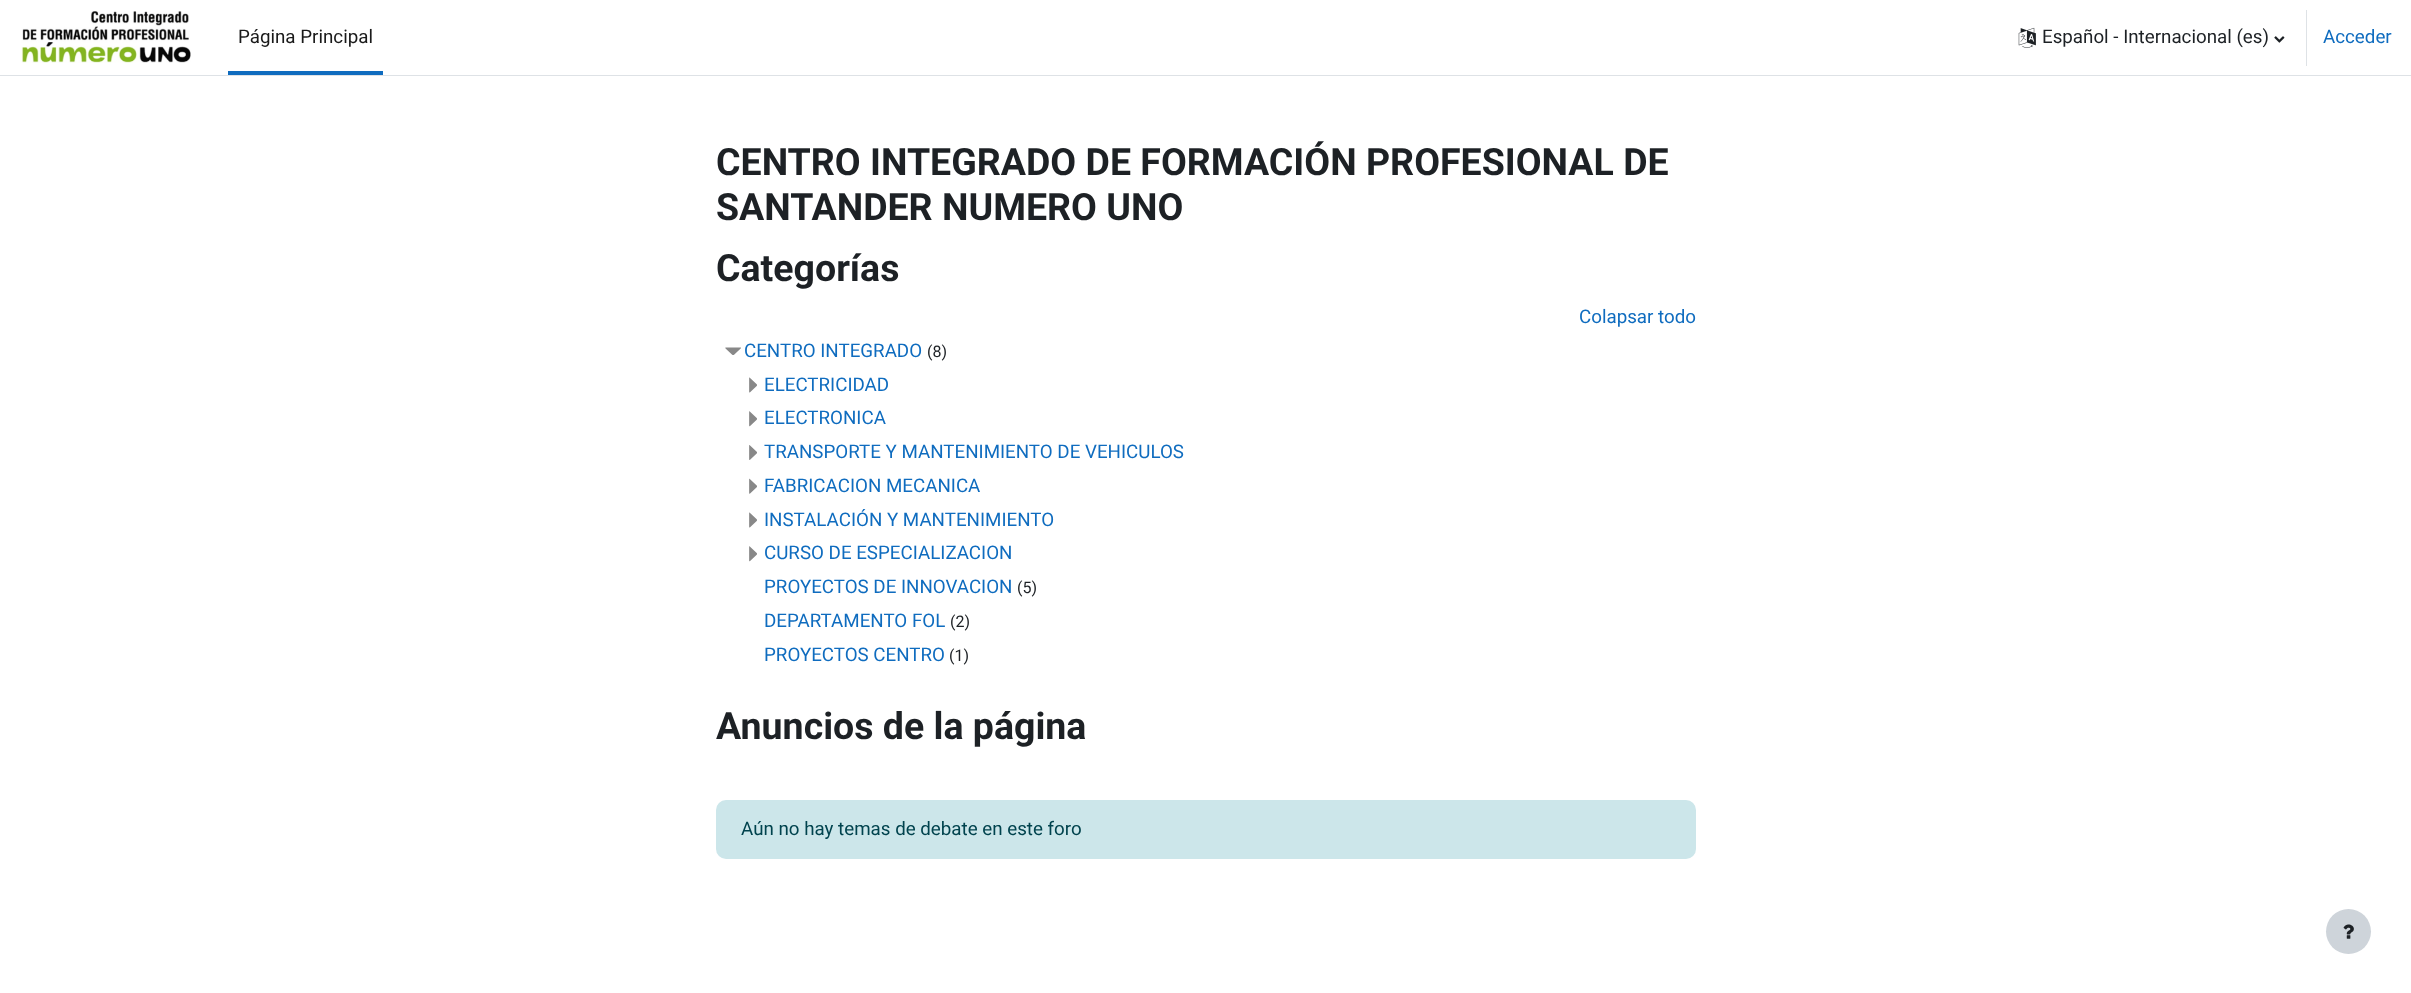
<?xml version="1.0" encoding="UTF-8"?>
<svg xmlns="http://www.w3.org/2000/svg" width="2411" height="993">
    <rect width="100%" height="100%" fill="#FFFFFF"/>
    <rect x="0" y="75" width="2411" height="1" fill="#DEE2E6"/>
    <image x="21" y="11" width="170" height="52" href="img_01.png"/>
    <rect x="228" y="71" width="155" height="4" fill="#0F6CBF"/>
    <text x="238" y="43" font-family="Roboto" font-size="18.75" fill="#1A1A1A">Página Principal</text>
    <image x="2018" y="27" width="18" height="21" href="img_02.png"/>
    <text x="2042" y="43" font-family="Roboto" font-size="18.75" fill="#1D2125">Español - Internacional (es)</text>
    <image x="2274" y="36" width="11" height="7" href="img_03.png"/>
    <rect x="2306" y="10" width="1" height="56" fill="#DEE2E6"/>
    <text x="2323" y="43" font-family="Roboto" font-size="18.75" fill="#0F6CBF">Acceder</text>
    <text font-family="Roboto" font-size="37.5" font-weight="700" fill="#1D2125">
        <tspan x="716" y="175">CENTRO INTEGRADO DE FORMACIÓN PROFESIONAL DE</tspan>
        <tspan x="716" y="220">SANTANDER NUMERO UNO</tspan>
        <tspan x="716" y="281">Categorías</tspan>
    </text>
    <text x="1579" y="323" font-family="Roboto" font-size="18.75" fill="#0F6CBF">Colapsar todo</text>
    <image x="725" y="347" width="16" height="8" href="img_04.png"/>
    <text x="744" y="357" font-family="Roboto" font-size="18.75" fill="#0F6CBF">CENTRO INTEGRADO</text>
    <text x="927" y="357" font-family="Roboto" font-size="16" fill="#1D2125">(8)</text>
    <image x="749" y="377" width="8" height="16" href="img_05.png"/>
    <text x="764" y="391" font-family="Roboto" font-size="18.75" fill="#0F6CBF">ELECTRICIDAD</text>
    <image x="749" y="411" width="8" height="16" href="img_06.png"/>
    <text x="764" y="424" font-family="Roboto" font-size="18.75" fill="#0F6CBF">ELECTRONICA</text>
    <image x="749" y="445" width="8" height="15" href="img_07.png"/>
    <text x="764" y="458" font-family="Roboto" font-size="18.75" fill="#0F6CBF">TRANSPORTE Y MANTENIMIENTO DE VEHICULOS</text>
    <image x="749" y="478" width="8" height="16" href="img_08.png"/>
    <text x="764" y="492" font-family="Roboto" font-size="18.75" fill="#0F6CBF">FABRICACION MECANICA</text>
    <image x="749" y="512" width="8" height="16" href="img_05.png"/>
    <text x="764" y="526" font-family="Roboto" font-size="18.75" fill="#0F6CBF">INSTALACIÓN Y MANTENIMIENTO</text>
    <image x="749" y="546" width="8" height="16" href="img_06.png"/>
    <text font-family="Roboto" font-size="18.75" fill="#0F6CBF">
        <tspan x="764" y="559">CURSO DE ESPECIALIZACION</tspan>
        <tspan x="764" y="593">PROYECTOS DE INNOVACION</tspan>
    </text>
    <text x="1017" y="593" font-family="Roboto" font-size="16" fill="#1D2125">(5)</text>
    <text x="764" y="627" font-family="Roboto" font-size="18.75" fill="#0F6CBF">DEPARTAMENTO FOL</text>
    <text x="950" y="627" font-family="Roboto" font-size="16" fill="#1D2125">(2)</text>
    <text x="764" y="661" font-family="Roboto" font-size="18.75" fill="#0F6CBF">PROYECTOS CENTRO</text>
    <text x="949" y="661" font-family="Roboto" font-size="16" fill="#1D2125">(1)</text>
    <text x="716" y="739" font-family="Roboto" font-size="37.5" font-weight="700" fill="#1D2125">Anuncios de la página</text>
    <rect x="716" y="800" width="980" height="59" rx="10" fill="#CCE6EA"/>
    <text x="741" y="835" font-family="Roboto" font-size="18.75" fill="#00434E">Aún no hay temas de debate en este foro</text>
    <circle cx="2348.5" cy="931.5" r="22.5" fill="#CED4DA"/>
    <image x="2343" y="924" width="11" height="15" href="img_09.png"/>
</svg>
